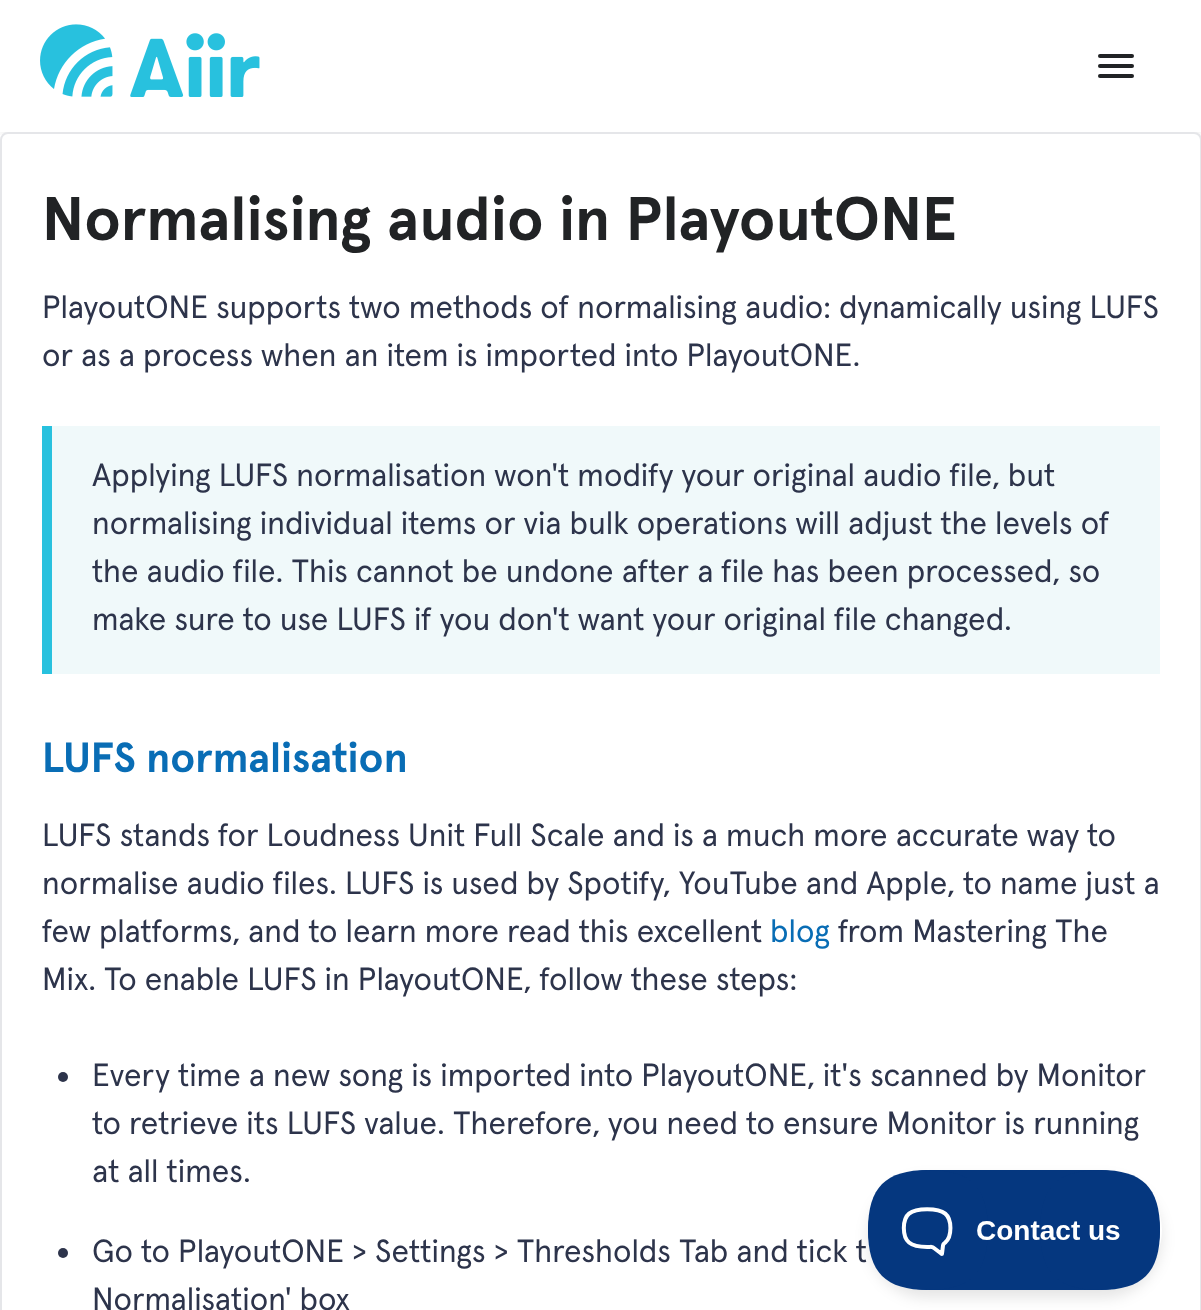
<?xml version="1.0" encoding="UTF-8"?>
<svg xmlns="http://www.w3.org/2000/svg" width="1201" height="1310">
    <defs>
        <clipPath id="clip1"><rect x="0" y="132" width="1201" height="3"/></clipPath>
        <filter id="blur1" x="-50%" y="-200%" width="200%" height="500%"><feGaussianBlur stdDeviation="4"/></filter>
        <clipPath id="clip2"><path d="M 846 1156 H 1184 V 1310 H 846 Z M 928 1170 H 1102 C 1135 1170 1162 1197 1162 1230 C 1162 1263 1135 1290 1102 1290 H 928 C 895 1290 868 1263 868 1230 C 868 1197 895 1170 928 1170 Z" clip-rule="evenodd"/></clipPath>
        <filter id="blur2" x="-50%" y="-200%" width="200%" height="500%"><feGaussianBlur stdDeviation="7"/></filter>
    </defs>
    <rect width="100%" height="100%" fill="#FFFFFF"/>
    <g clip-path="url(#clip1)">
        <rect x="0" y="2" width="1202" height="132" fill="#000000" fill-opacity="0.07" filter="url(#blur1)"/>
    </g>
    <image x="40" y="24" width="220" height="73" href="img_01.png"/>
    <rect x="1098" y="54" width="36" height="4" rx="2" fill="#212325"/>
    <rect x="1098" y="64" width="36" height="4" rx="2" fill="#212325"/>
    <rect x="1098" y="74" width="36" height="4" rx="2" fill="#212325"/>
    <rect x="1" y="133" width="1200" height="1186" rx="7" fill="#FFFFFF" stroke="#E5E6E9" stroke-width="2"/>
    <text x="42" y="240" font-family="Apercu" font-size="61.6" font-weight="700" fill="#212325">Normalising audio in PlayoutONE</text>
    <text font-family="Apercu" font-size="32" fill="#2D344B">
        <tspan x="42" y="318">PlayoutONE supports two methods of normalising audio: dynamically using LUFS</tspan>
        <tspan x="42" y="366">or as a process when an item is imported into PlayoutONE.</tspan>
    </text>
    <rect x="52" y="426" width="1108" height="248" fill="#F0F9FA"/>
    <rect x="42" y="426" width="10" height="248" fill="#28C1DE"/>
    <text font-family="Apercu" font-size="32" fill="#2D344B">
        <tspan x="92" y="486">Applying LUFS normalisation won't modify your original audio file, but</tspan>
        <tspan x="92" y="534">normalising individual items or via bulk operations will adjust the levels of</tspan>
        <tspan x="92" y="582">the audio file. This cannot be undone after a file has been processed, so</tspan>
        <tspan x="92" y="630">make sure to use LUFS if you don't want your original file changed.</tspan>
    </text>
    <text x="42" y="772" font-family="Apercu" font-size="42" font-weight="700" fill="#096DB5">LUFS normalisation</text>
    <text font-family="Apercu" font-size="32" fill="#2D344B">
        <tspan x="42" y="846">LUFS stands for Loudness Unit Full Scale and is a much more accurate way to</tspan>
        <tspan x="42" y="894">normalise audio files. LUFS is used by Spotify, YouTube and Apple, to name just a</tspan>
        <tspan x="42" y="942">few platforms, and to learn more read this excellent</tspan>
    </text>
    <text x="770" y="942" font-family="Apercu" font-size="32" fill="#096DB5">blog</text>
    <text x="838" y="942" font-family="Apercu" font-size="32" fill="#2D344B">from Mastering The</text>
    <text x="42" y="990" font-family="Apercu" font-size="32" fill="#2D344B">Mix. To enable LUFS in PlayoutONE, follow these steps:</text>
    <circle cx="63" cy="1077" r="5" fill="#2D344B"/>
    <text font-family="Apercu" font-size="32" fill="#2D344B">
        <tspan x="92" y="1086">Every time a new song is imported into PlayoutONE, it's scanned by Monitor</tspan>
        <tspan x="92" y="1134">to retrieve its LUFS value. Therefore, you need to ensure Monitor is running</tspan>
        <tspan x="92" y="1182">at all times.</tspan>
    </text>
    <circle cx="63" cy="1253" r="5" fill="#2D344B"/>
    <text font-family="Apercu" font-size="32" fill="#2D344B">
        <tspan x="92" y="1262">Go to PlayoutONE &gt; Settings &gt; Thresholds Tab and tick t</tspan>
        <tspan x="92" y="1310">Normalisation' box</tspan>
    </text>
    <g clip-path="url(#clip2)">
        <rect x="868" y="1178" width="294" height="120" rx="60" fill="#000000" fill-opacity="0.1" filter="url(#blur2)"/>
    </g>
    <image x="868" y="1170" width="292" height="120" href="img_02.png"/>
</svg>
